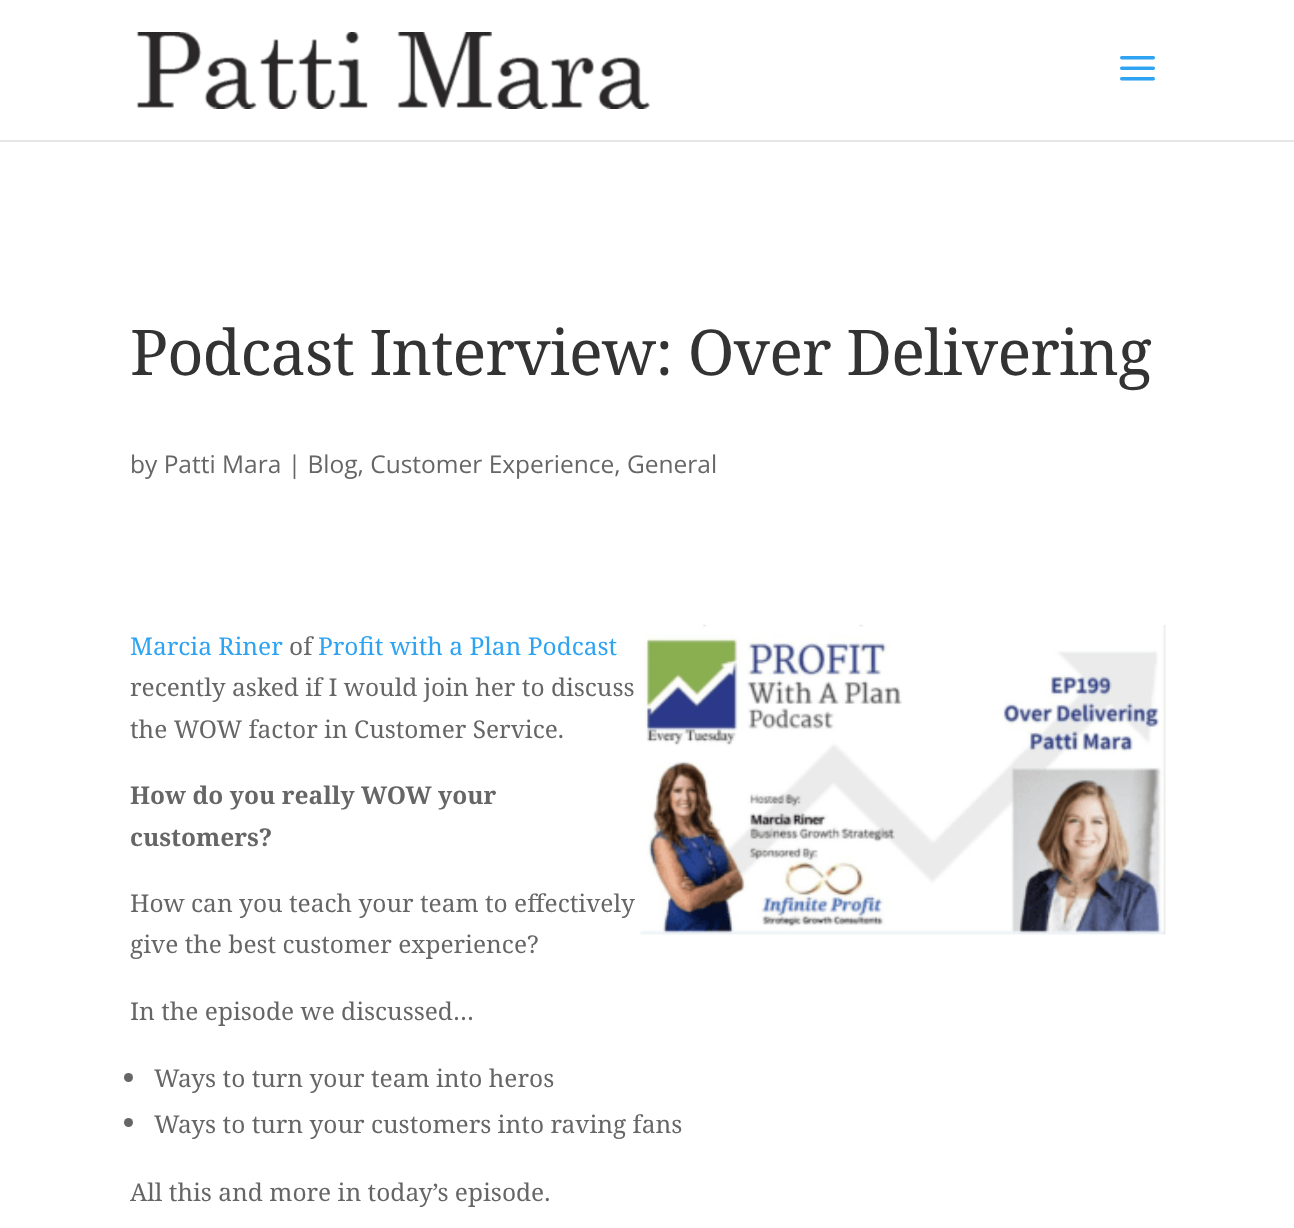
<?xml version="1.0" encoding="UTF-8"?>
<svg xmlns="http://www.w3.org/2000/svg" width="1294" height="1228">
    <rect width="100%" height="100%" fill="#FFFFFF"/>
    <rect x="0" y="140" width="1294" height="2" fill="#E6E6E6"/>
    <image x="136" y="32" width="514" height="77" href="img_01.png"/>
    <image x="1120" y="56" width="35" height="25" href="img_02.png"/>
    <text x="130" y="375" font-family="Noto Serif" font-size="63" letter-spacing="-0.9" fill="#333333">Podcast Interview: Over Delivering</text>
    <text x="130" y="473" font-family="Open Sans" font-size="24.5" fill="#666666">by Patti Mara | Blog, Customer Experience, General</text>
    <text x="130" y="655" font-family="Noto Serif" font-size="24.5" fill="#2EA3F2">Marcia Riner</text>
    <text x="289" y="655" font-family="Noto Serif" font-size="24.5" fill="#666666">of</text>
    <text x="318" y="655" font-family="Noto Serif" font-size="24.5" fill="#2EA3F2">Profit with a Plan Podcast</text>
    <image x="640" y="624" width="526" height="311" href="img_03.png"/>
    <text font-family="Noto Serif" font-size="24.5" fill="#666666">
        <tspan x="130" y="696">recently asked if I would join her to discuss</tspan>
        <tspan x="130" y="738">the WOW factor in Customer Service.</tspan>
    </text>
    <text font-family="Noto Serif" font-size="24.5" font-weight="700" fill="#666666">
        <tspan x="130" y="804">How do you really WOW your</tspan>
        <tspan x="130" y="846">customers?</tspan>
    </text>
    <text font-family="Noto Serif" font-size="24.5" fill="#666666">
        <tspan x="130" y="912">How can you teach your team to effectively</tspan>
        <tspan x="130" y="953">give the best customer experience?</tspan>
    </text>
    <text x="130" y="1020" font-family="Noto Serif" font-size="24.5" fill="#666666">In the episode we discussed…</text>
    <circle cx="128.5" cy="1077.5" r="4.5" fill="#666666"/>
    <text x="154" y="1087" font-family="Noto Serif" font-size="24.5" fill="#666666">Ways to turn your team into heros</text>
    <circle cx="128.5" cy="1122.5" r="4.5" fill="#666666"/>
    <text x="154" y="1133" font-family="Noto Serif" font-size="24.5" fill="#666666">Ways to turn your customers into raving fans</text>
    <text x="130" y="1201" font-family="Noto Serif" font-size="24.5" fill="#666666">All this and more in today’s episode.</text>
</svg>
